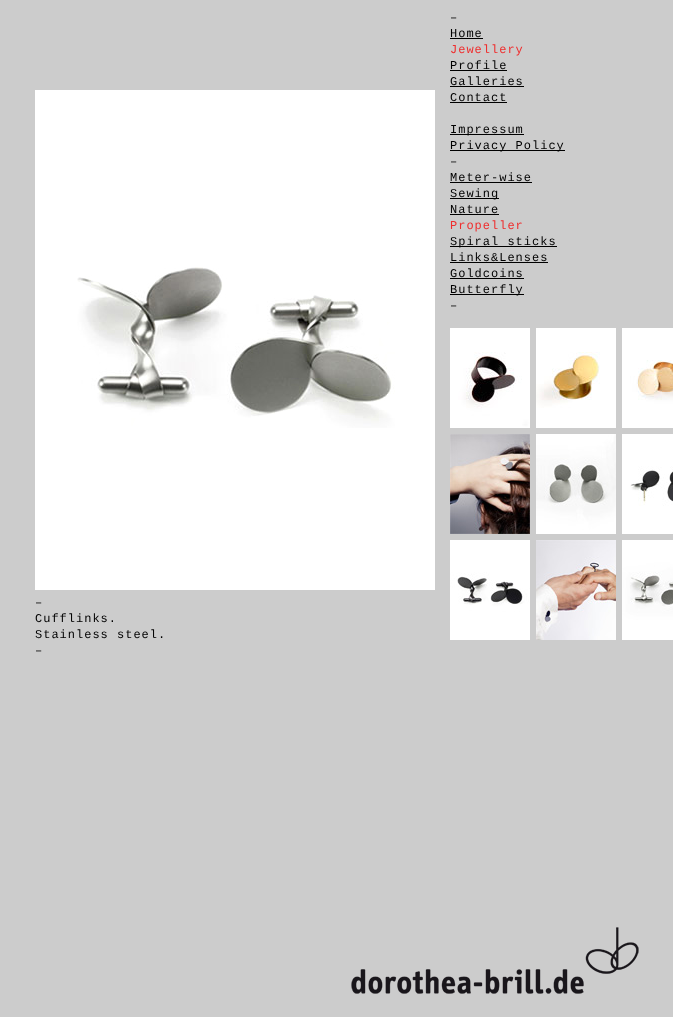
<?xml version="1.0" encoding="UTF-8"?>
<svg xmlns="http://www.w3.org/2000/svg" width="673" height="1017">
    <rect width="100%" height="100%" fill="#CCCCCC"/>
    <rect x="35" y="90" width="400" height="500" fill="#FFFFFF"/>
    <image x="77" y="267" width="318" height="161" href="img_01.png"/>
    <text font-family="Liberation Mono" font-size="12" letter-spacing="1" fill="#000000">
        <tspan x="450" y="21">–</tspan>
        <tspan x="450" y="37">Home</tspan>
    </text>
    <rect x="450" y="38" width="33" height="1" fill="#000000"/>
    <text x="450" y="53" font-family="Liberation Mono" font-size="12" letter-spacing="1" fill="#EF2D2D">Jewellery</text>
    <text x="450" y="69" font-family="Liberation Mono" font-size="12" letter-spacing="1" fill="#000000">Profile</text>
    <rect x="450" y="70" width="57" height="1" fill="#000000"/>
    <text x="450" y="85" font-family="Liberation Mono" font-size="12" letter-spacing="1" fill="#000000">Galleries</text>
    <rect x="450" y="86" width="74" height="1" fill="#000000"/>
    <text x="450" y="101" font-family="Liberation Mono" font-size="12" letter-spacing="1" fill="#000000">Contact</text>
    <rect x="450" y="102" width="57" height="1" fill="#000000"/>
    <rect x="450" y="134" width="74" height="1" fill="#000000"/>
    <text x="450" y="133" font-family="Liberation Mono" font-size="12" letter-spacing="1" fill="#000000">Impressum</text>
    <rect x="450" y="150" width="115" height="1" fill="#000000"/>
    <text font-family="Liberation Mono" font-size="12" letter-spacing="1" fill="#000000">
        <tspan x="450" y="149">Privacy Policy</tspan>
        <tspan x="450" y="165">–</tspan>
        <tspan x="450" y="181">Meter-wise</tspan>
    </text>
    <rect x="450" y="182" width="82" height="1" fill="#000000"/>
    <rect x="450" y="198" width="49" height="1" fill="#000000"/>
    <text font-family="Liberation Mono" font-size="12" letter-spacing="1" fill="#000000">
        <tspan x="450" y="197">Sewing</tspan>
        <tspan x="450" y="213">Nature</tspan>
    </text>
    <rect x="450" y="214" width="49" height="1" fill="#000000"/>
    <text x="450" y="229" font-family="Liberation Mono" font-size="12" letter-spacing="1" fill="#EF2D2D">Propeller</text>
    <rect x="450" y="246" width="107" height="1" fill="#000000"/>
    <text font-family="Liberation Mono" font-size="12" letter-spacing="1" fill="#000000">
        <tspan x="450" y="245">Spiral sticks</tspan>
        <tspan x="450" y="261">Links&amp;Lenses</tspan>
    </text>
    <rect x="450" y="262" width="98" height="1" fill="#000000"/>
    <text x="450" y="277" font-family="Liberation Mono" font-size="12" letter-spacing="1" fill="#000000">Goldcoins</text>
    <rect x="450" y="278" width="74" height="1" fill="#000000"/>
    <rect x="450" y="294" width="74" height="1" fill="#000000"/>
    <text font-family="Liberation Mono" font-size="12" letter-spacing="1" fill="#000000">
        <tspan x="450" y="293">Butterfly</tspan>
        <tspan x="450" y="309">–</tspan>
    </text>
    <text font-family="Liberation Mono" font-size="12" letter-spacing="1" fill="#000000">
        <tspan x="35" y="606">–</tspan>
        <tspan x="35" y="622">Cufflinks.</tspan>
        <tspan x="35" y="638">Stainless steel.</tspan>
        <tspan x="35" y="654">–</tspan>
    </text>
    <image x="351" y="927" width="288" height="67" href="img_02.png"/>
    <image x="450" y="328" width="80" height="100" href="img_03.png"/>
    <image x="536" y="328" width="80" height="100" href="img_04.png"/>
    <image x="622" y="328" width="51" height="100" href="img_05.png"/>
    <image x="450" y="434" width="80" height="100" href="img_06.png"/>
    <image x="536" y="434" width="80" height="100" href="img_07.png"/>
    <image x="622" y="434" width="51" height="100" href="img_08.png"/>
    <image x="450" y="540" width="80" height="100" href="img_09.png"/>
    <image x="536" y="540" width="80" height="100" href="img_10.png"/>
    <image x="622" y="540" width="51" height="100" href="img_11.png"/>
</svg>
